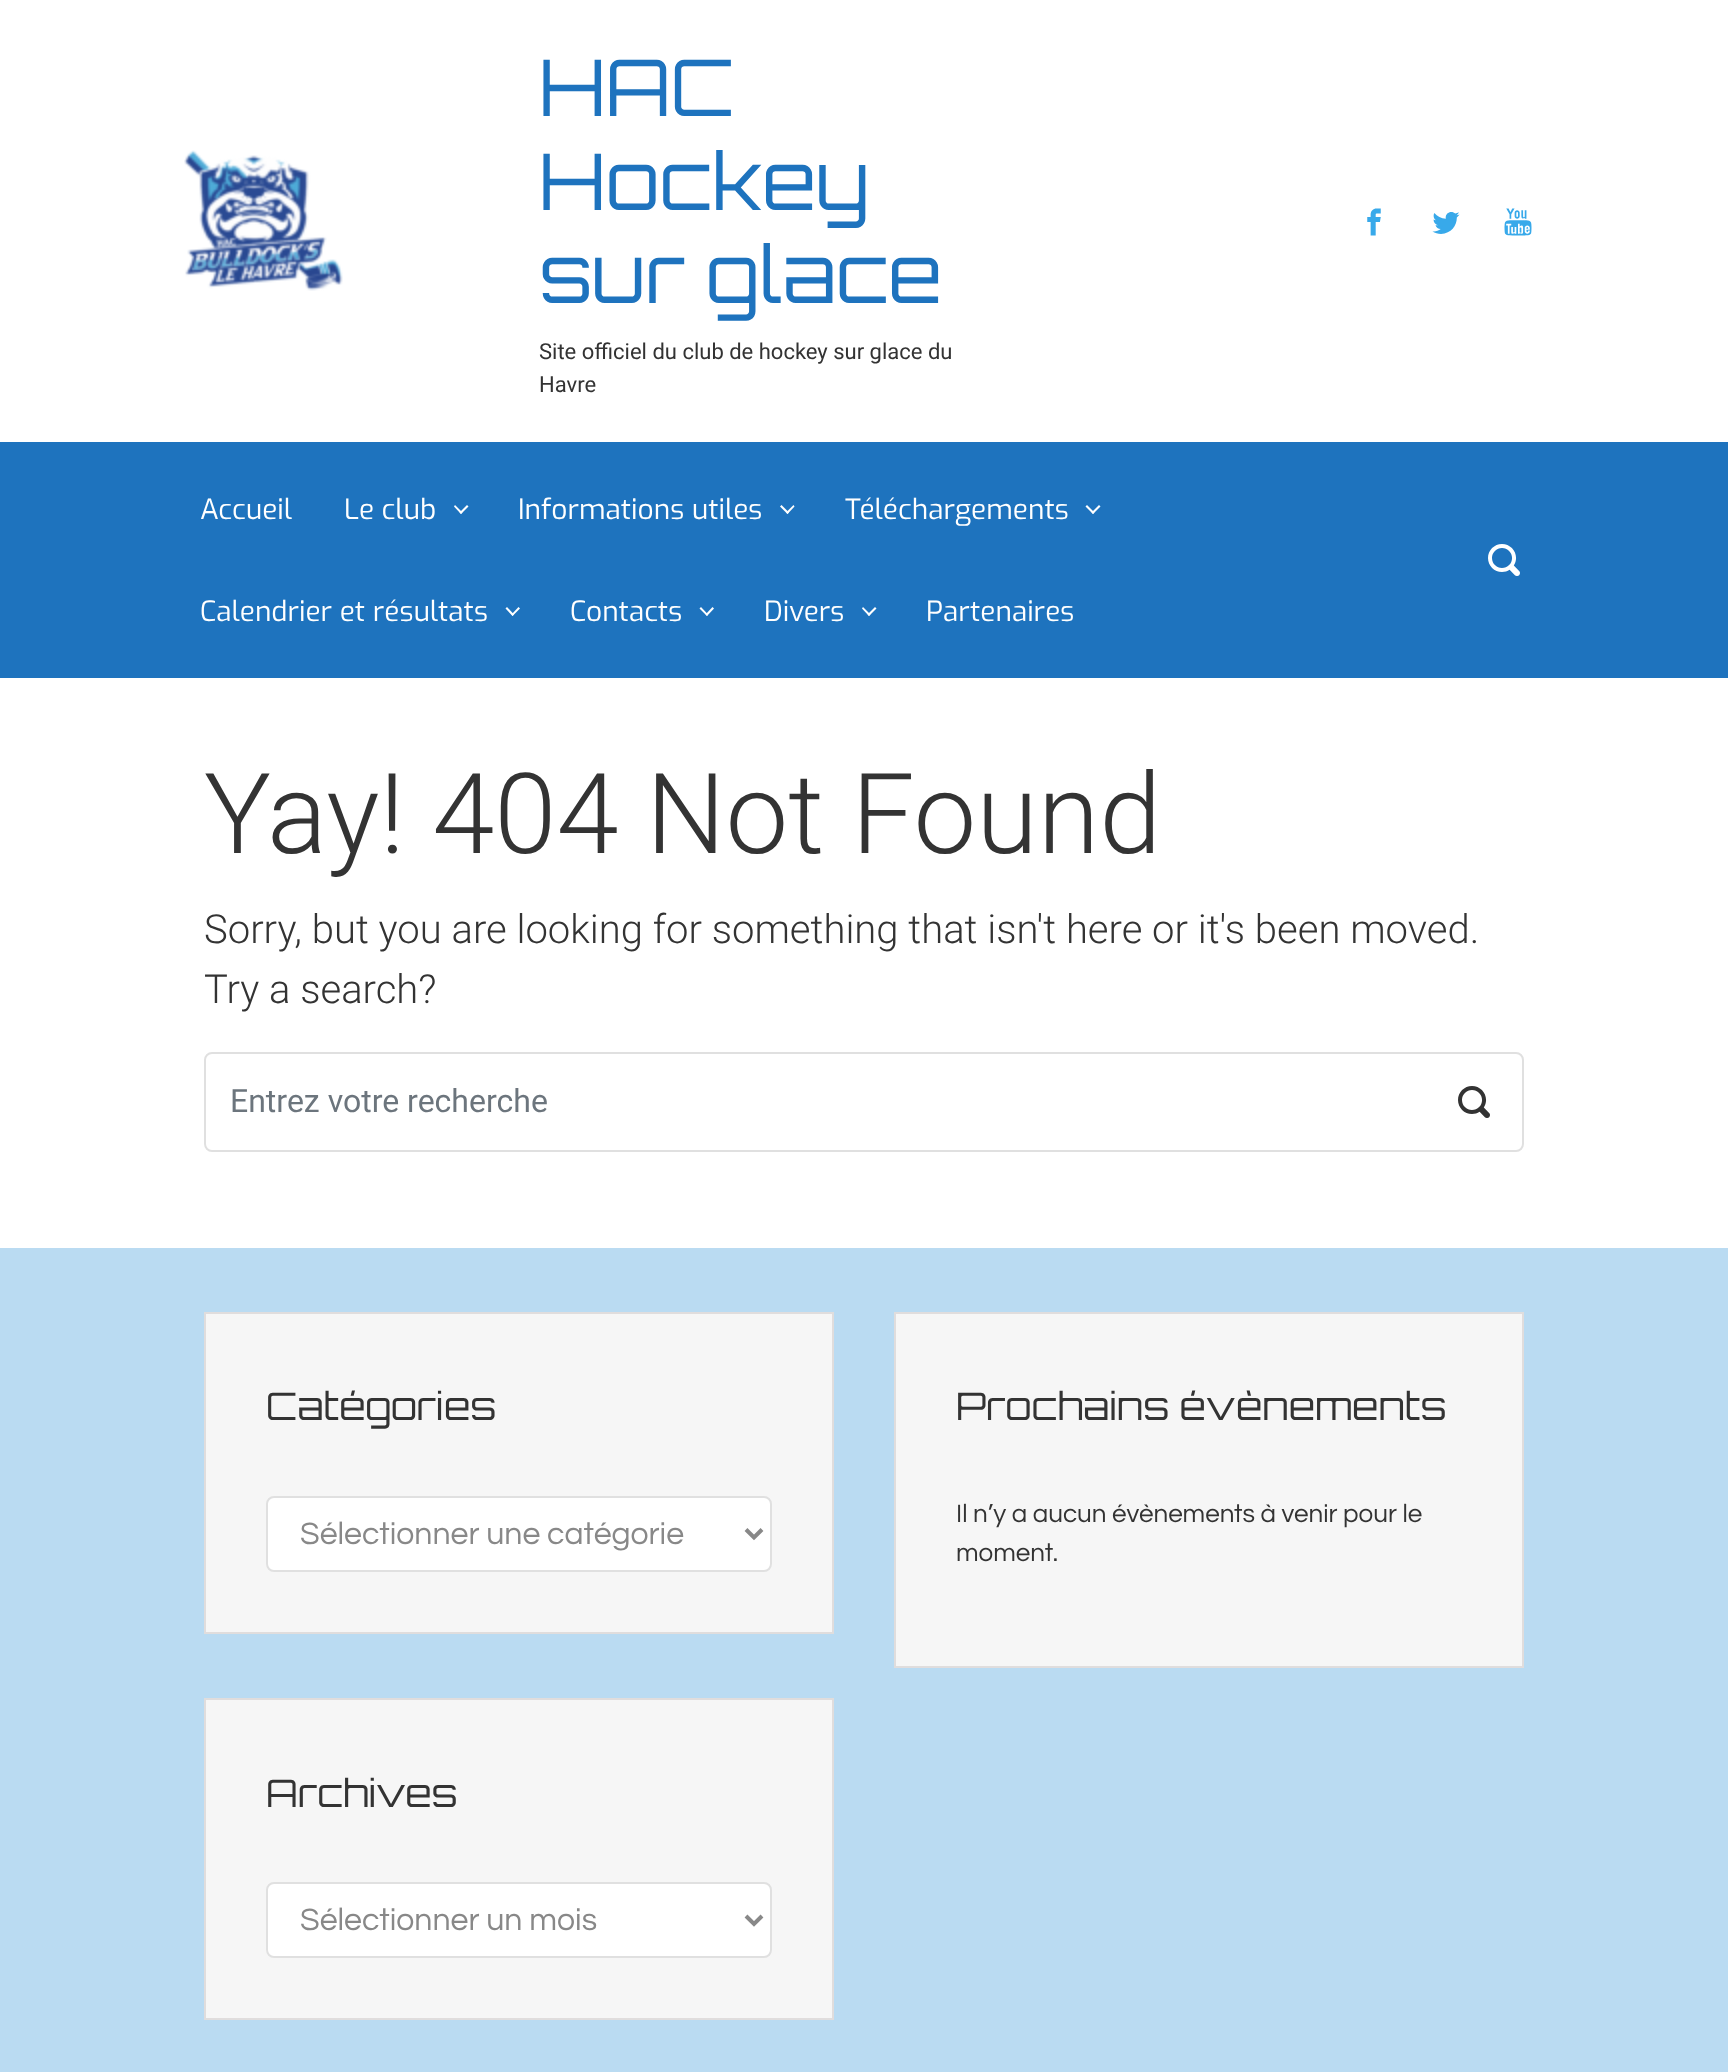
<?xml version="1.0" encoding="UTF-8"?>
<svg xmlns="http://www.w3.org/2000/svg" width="1728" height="2072">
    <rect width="100%" height="100%" fill="#FFFFFF"/>
    <image x="184" y="150" width="159" height="141" href="img_01.png"/>
    <text font-family="Orbitron" font-size="78" fill="#1E73BE">
        <tspan x="539" y="116">HAC</tspan>
        <tspan x="539" y="210">Hockey</tspan>
        <tspan x="539" y="303">sur glace</tspan>
    </text>
    <text font-family="Roboto" font-size="22" fill="#333333">
        <tspan x="539" y="359">Site officiel du club de hockey sur glace du</tspan>
        <tspan x="539" y="392">Havre</tspan>
    </text>
    <image x="1367" y="208" width="14" height="28" href="img_02.png"/>
    <image x="1432" y="212" width="28" height="22" href="img_03.png"/>
    <image x="1504" y="208" width="28" height="28" href="img_04.png"/>
    <rect x="0" y="442" width="1728" height="236" fill="#1E73BE"/>
    <text x="200" y="519" font-family="Exo" font-size="28" fill="#FFFFFF">Accueil</text>
    <text x="344" y="519" font-family="Exo" font-size="28" fill="#FFFFFF">Le club</text>
    <path d="M 467 505 L 468.5 506.5 L 461 514 L 459.5 512.5 Z" fill="#FFFFFF"/>
    <path d="M 455 505 L 462.5 512.5 L 461 514 L 454 506.5 Z" fill="#FFFFFF"/>
    <text x="518" y="519" font-family="Exo" font-size="28" fill="#FFFFFF">Informations utiles</text>
    <path d="M 793.5 505 L 794.5 506.5 L 787.5 514 L 786 512.5 Z" fill="#FFFFFF"/>
    <path d="M 781.5 505 L 789 512.5 L 787.5 514 L 780 506.5 Z" fill="#FFFFFF"/>
    <text x="845" y="519" font-family="Exo" font-size="28" fill="#FFFFFF">Téléchargements</text>
    <path d="M 1099 505 L 1100.5 506.5 L 1093 514 L 1091.5 512.5 Z" fill="#FFFFFF"/>
    <path d="M 1087 505 L 1094.5 512.5 L 1093 514 L 1085.5 506.5 Z" fill="#FFFFFF"/>
    <text x="200" y="621" font-family="Exo" font-size="28" fill="#FFFFFF">Calendrier et résultats</text>
    <path d="M 518.5 607 L 520 608.5 L 512.5 616 L 511.5 614.5 Z" fill="#FFFFFF"/>
    <path d="M 507 607 L 514 614.5 L 512.5 616 L 505.5 608.5 Z" fill="#FFFFFF"/>
    <text x="570" y="621" font-family="Exo" font-size="28" fill="#FFFFFF">Contacts</text>
    <path d="M 712.5 607 L 714 608.5 L 707 616 L 705.5 614.5 Z" fill="#FFFFFF"/>
    <path d="M 701 607 L 708 614.5 L 707 616 L 699.5 608.5 Z" fill="#FFFFFF"/>
    <text x="764" y="621" font-family="Exo" font-size="28" fill="#FFFFFF">Divers</text>
    <path d="M 875 607 L 876.5 608.5 L 869 616 L 867.5 614.5 Z" fill="#FFFFFF"/>
    <path d="M 863 607 L 870.5 614.5 L 869 616 L 862 608.5 Z" fill="#FFFFFF"/>
    <text x="926" y="621" font-family="Exo" font-size="28" fill="#FFFFFF">Partenaires</text>
    <image x="1488" y="544" width="32" height="32" href="img_05.png"/>
    <text x="204" y="853" font-family="Roboto" font-size="112" font-weight="300" fill="#333333">Yay! 404 Not Found</text>
    <text font-family="Roboto" font-size="40" font-weight="300" fill="#333333">
        <tspan x="204" y="943">Sorry, but you are looking for something that isn't here or it's been moved.</tspan>
        <tspan x="204" y="1003">Try a search?</tspan>
    </text>
    <rect x="205" y="1053" width="1318" height="98" rx="7" fill="none" stroke="#E0E0E0" stroke-width="2"/>
    <text x="230" y="1112" font-family="Roboto" font-size="32" fill="#6C757D">Entrez votre recherche</text>
    <image x="1458" y="1086" width="32" height="32" href="img_06.png"/>
    <rect x="0" y="1248" width="1728" height="824" fill="#BADBF2"/>
    <rect x="205" y="1313" width="628" height="320" fill="#F6F6F6" stroke="#E0DDDD" stroke-width="2"/>
    <text x="266" y="1420" font-family="Orbitron" font-size="38" fill="#333333">Catégories</text>
    <rect x="267" y="1497" width="504" height="74" rx="7" fill="#FFFFFF" stroke="#E0E0E0" stroke-width="2"/>
    <path d="M 746 1529.5 L 754 1537.5 L 762 1529.5" fill="none" stroke="#888888" stroke-width="4"/>
    <text x="300" y="1544" font-family="Questrial" font-size="32" fill="#888888">Sélectionner une catégorie</text>
    <rect x="205" y="1699" width="628" height="320" fill="#F6F6F6" stroke="#E0DDDD" stroke-width="2"/>
    <text x="266" y="1807" font-family="Orbitron" font-size="38" fill="#333333">Archives</text>
    <rect x="267" y="1883" width="504" height="74" rx="7" fill="#FFFFFF" stroke="#E0E0E0" stroke-width="2"/>
    <path d="M 746 1916 L 754 1924 L 762 1916" fill="none" stroke="#888888" stroke-width="4"/>
    <text x="300" y="1930" font-family="Questrial" font-size="32" fill="#888888">Sélectionner un mois</text>
    <rect x="895" y="1313" width="628" height="354" fill="#F6F6F6" stroke="#E0DDDD" stroke-width="2"/>
    <text x="956" y="1420" font-family="Orbitron" font-size="38" fill="#333333">Prochains évènements</text>
    <text font-family="Questrial" font-size="26" fill="#333333">
        <tspan x="956" y="1522">Il n’y a aucun évènements à venir pour le</tspan>
        <tspan x="956" y="1561">moment.</tspan>
    </text>
</svg>
